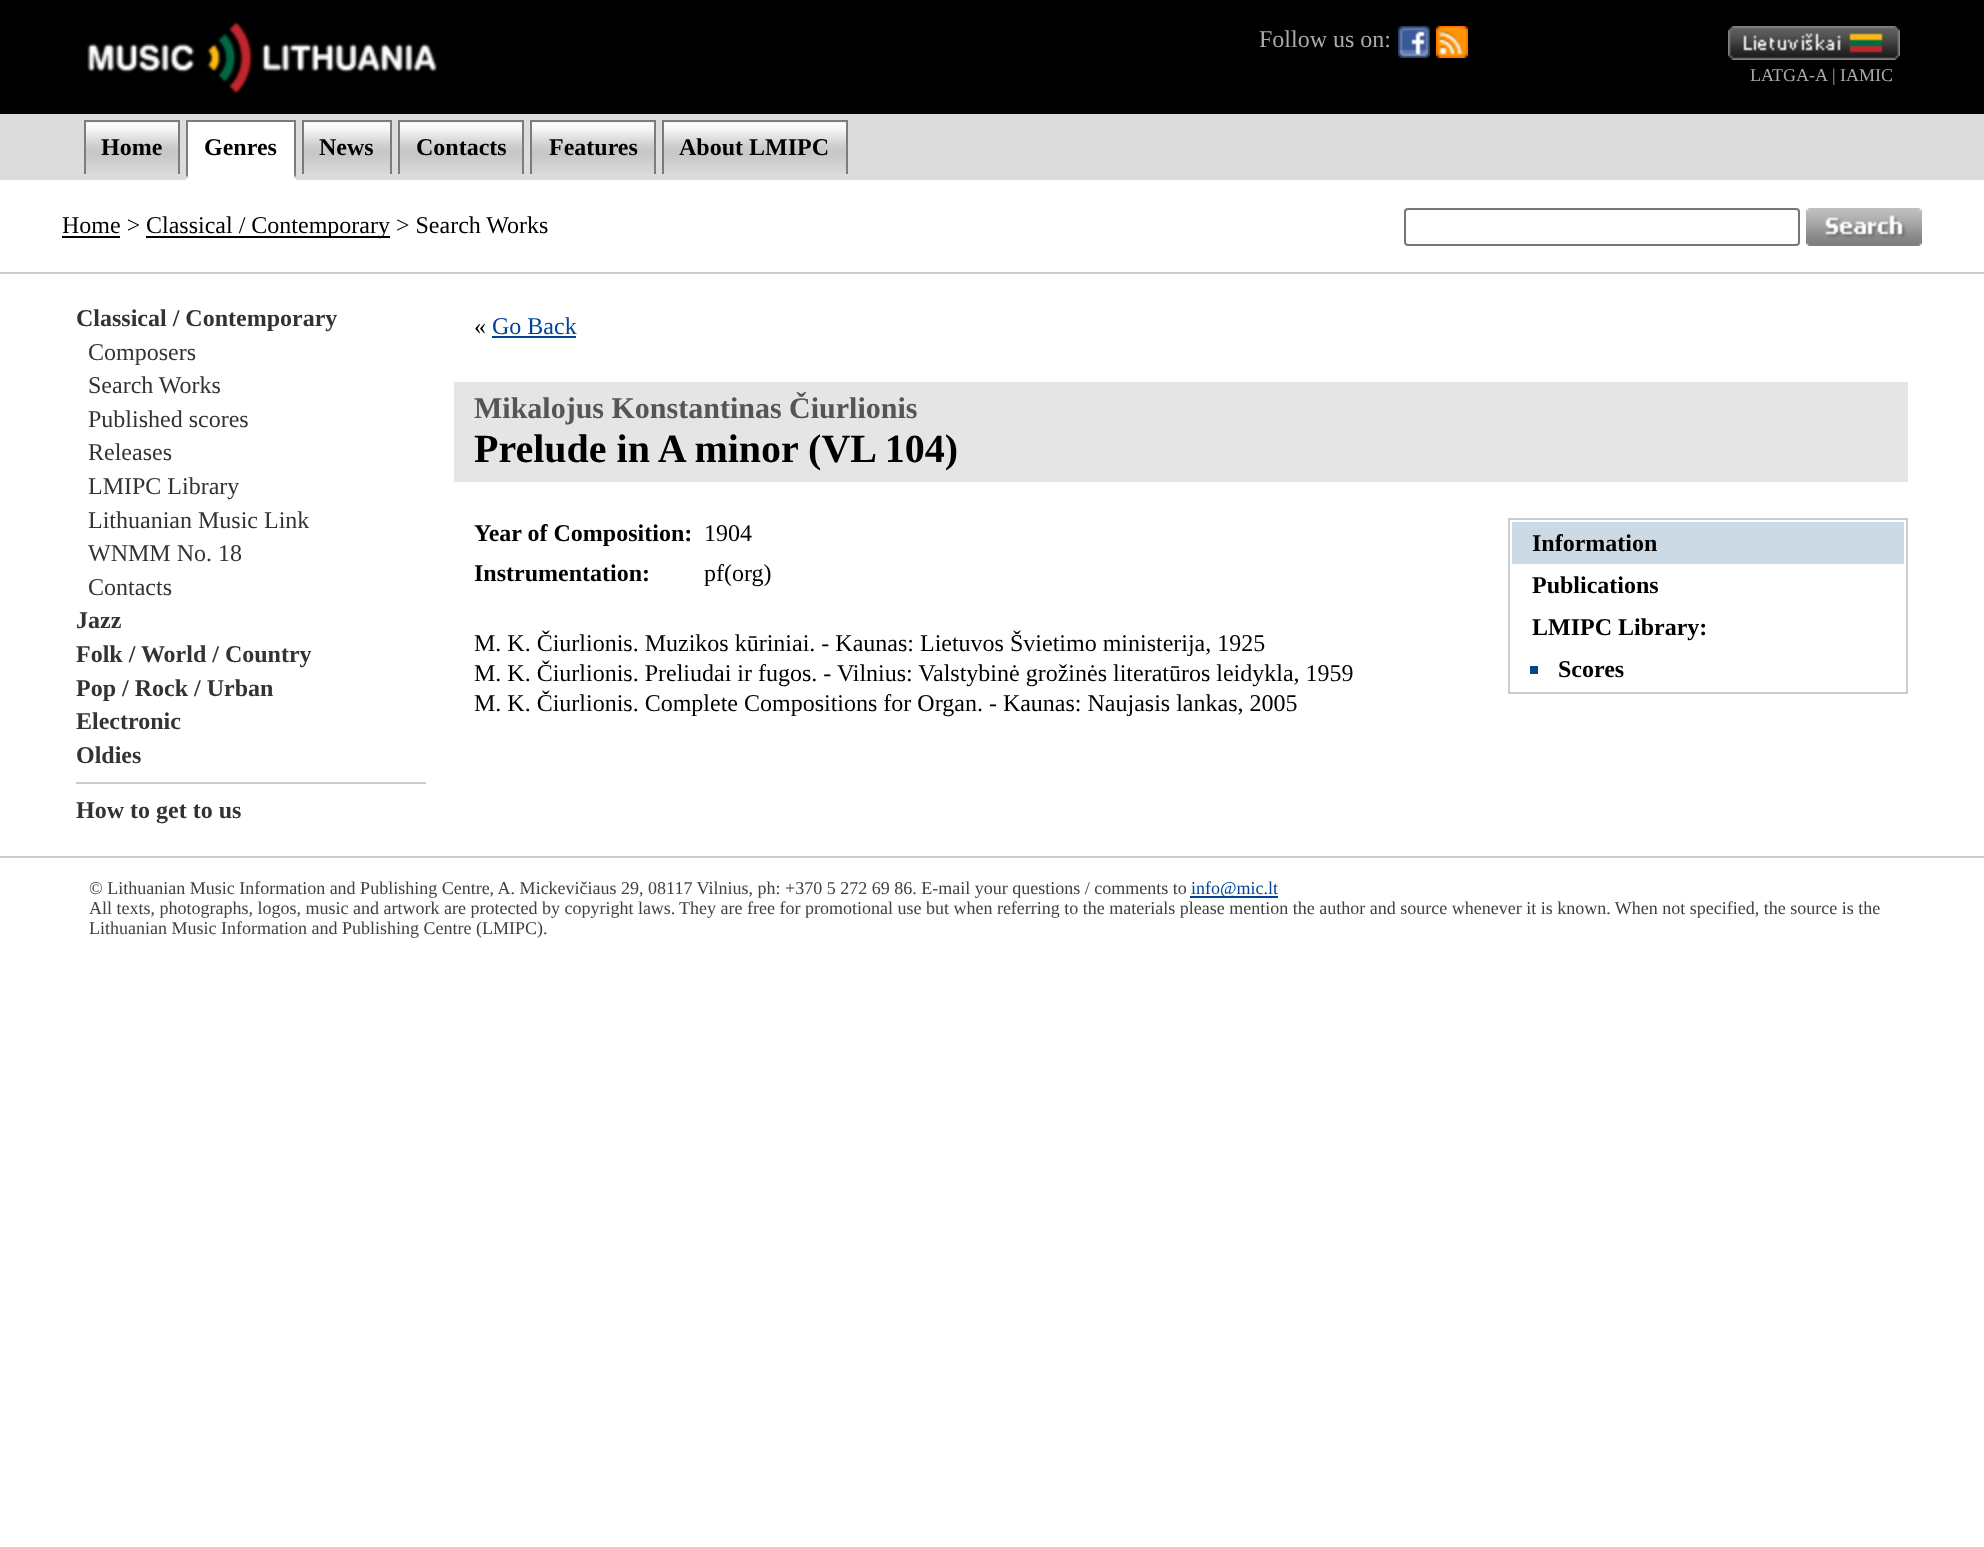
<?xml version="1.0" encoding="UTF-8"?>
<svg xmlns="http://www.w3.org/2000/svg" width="1984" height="1547">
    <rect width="100%" height="100%" fill="#FFFFFF"/>
    <rect x="0" y="0" width="1984" height="114" fill="#000000"/>
    <image x="87" y="21" width="350" height="74" href="img_01.png"/>
    <text x="1259" y="47" font-family="Liberation Serif" font-size="24" fill="#AAAAAA">Follow us on:</text>
    <image x="1398" y="26" width="32" height="32" href="img_02.png"/>
    <image x="1436" y="26" width="32" height="32" href="img_03.png"/>
    <image x="1728" y="26" width="172" height="34" href="img_04.png"/>
    <text x="1750" y="81" font-family="Liberation Serif" font-size="18" fill="#AAAAAA">LATGA-A</text>
    <text x="1832" y="81" font-family="Liberation Serif" font-size="18" fill="#AAAAAA">| IAMIC</text>
    <rect x="0" y="114" width="1984" height="66" fill="#DCDCDC"/>
    <image x="86" y="122" width="92" height="51" href="img_05.png"/>
    <rect x="84" y="120" width="96" height="2" fill="#7C7C7C"/>
    <rect x="178" y="120" width="2" height="54" fill="#7C7C7C"/>
    <rect x="84" y="120" width="2" height="54" fill="#7C7C7C"/>
    <text x="101" y="155" font-family="Liberation Serif" font-size="24" font-weight="700" fill="#000000">Home</text>
    <rect x="188" y="122" width="106" height="52" fill="#FFFFFF"/>
    <rect x="186" y="120" width="110" height="2" fill="#7C7C7C"/>
    <rect x="294" y="120" width="2" height="54" fill="#7C7C7C"/>
    <rect x="186" y="120" width="2" height="54" fill="#7C7C7C"/>
    <text x="204" y="155" font-family="Liberation Serif" font-size="24" font-weight="700" fill="#000000">Genres</text>
    <image x="304" y="122" width="86" height="51" href="img_06.png"/>
    <rect x="302" y="120" width="90" height="2" fill="#7C7C7C"/>
    <rect x="390" y="120" width="2" height="54" fill="#7C7C7C"/>
    <rect x="302" y="120" width="2" height="54" fill="#7C7C7C"/>
    <text x="319" y="155" font-family="Liberation Serif" font-size="24" font-weight="700" fill="#000000">News</text>
    <image x="400" y="122" width="122" height="51" href="img_07.png"/>
    <rect x="398" y="120" width="126" height="2" fill="#7C7C7C"/>
    <rect x="522" y="120" width="2" height="54" fill="#7C7C7C"/>
    <rect x="398" y="120" width="2" height="54" fill="#7C7C7C"/>
    <text x="416" y="155" font-family="Liberation Serif" font-size="24" font-weight="700" fill="#000000">Contacts</text>
    <image x="532" y="122" width="122" height="51" href="img_08.png"/>
    <rect x="530" y="120" width="126" height="2" fill="#7C7C7C"/>
    <rect x="654" y="120" width="2" height="54" fill="#7C7C7C"/>
    <rect x="530" y="120" width="2" height="54" fill="#7C7C7C"/>
    <text x="549" y="155" font-family="Liberation Serif" font-size="24" font-weight="700" fill="#000000">Features</text>
    <image x="664" y="122" width="182" height="51" href="img_09.png"/>
    <rect x="662" y="120" width="186" height="2" fill="#7C7C7C"/>
    <rect x="846" y="120" width="2" height="54" fill="#7C7C7C"/>
    <rect x="662" y="120" width="2" height="54" fill="#7C7C7C"/>
    <text x="679" y="155" font-family="Liberation Serif" font-size="24" font-weight="700" fill="#000000">About LMIPC</text>
    <rect x="186" y="174" width="110" height="6" fill="#FFFFFF"/>
    <image x="186" y="174" width="2" height="5" href="img_10.png"/>
    <image x="294" y="174" width="2" height="5" href="img_10.png"/>
    <text x="62" y="233" font-family="Liberation Serif" font-size="24" fill="#000000">Home &gt;</text>
    <rect x="62" y="236" width="58" height="2" fill="#000000"/>
    <rect x="146" y="236" width="244" height="2" fill="#000000"/>
    <text x="146" y="233" font-family="Liberation Serif" font-size="24" fill="#000000">Classical / Contemporary &gt; Search Works</text>
    <rect x="1405" y="209" width="394" height="36" rx="3" fill="none" stroke="#767676" stroke-width="2"/>
    <image x="1806" y="208" width="116" height="38" href="img_11.png"/>
    <rect x="0" y="272" width="1984" height="2" fill="#CCCCCC"/>
    <text x="76" y="326" font-family="Liberation Serif" font-size="24" font-weight="700" fill="#333333">Classical / Contemporary</text>
    <text font-family="Liberation Serif" font-size="24" fill="#333333">
        <tspan x="88" y="360">Composers</tspan>
        <tspan x="88" y="393">Search Works</tspan>
        <tspan x="88" y="427">Published scores</tspan>
        <tspan x="88" y="460">Releases</tspan>
        <tspan x="88" y="494">LMIPC Library</tspan>
        <tspan x="88" y="528">Lithuanian Music Link</tspan>
        <tspan x="88" y="561">WNMM No. 18</tspan>
        <tspan x="88" y="595">Contacts</tspan>
    </text>
    <text font-family="Liberation Serif" font-size="24" font-weight="700" fill="#333333">
        <tspan x="76" y="628">Jazz</tspan>
        <tspan x="76" y="662">Folk / World / Country</tspan>
        <tspan x="76" y="696">Pop / Rock / Urban</tspan>
        <tspan x="76" y="729">Electronic</tspan>
        <tspan x="76" y="763">Oldies</tspan>
    </text>
    <rect x="76" y="782" width="350" height="2" fill="#CCCCCC"/>
    <text x="76" y="818" font-family="Liberation Serif" font-size="24" font-weight="700" fill="#333333">How to get to us</text>
    <text x="474" y="334" font-family="Liberation Serif" font-size="24" fill="#000000">«</text>
    <text x="492" y="334" font-family="Liberation Serif" font-size="24" fill="#004298">Go Back</text>
    <rect x="492" y="336" width="84" height="2" fill="#004298"/>
    <rect x="454" y="382" width="1454" height="100" fill="#E5E5E5"/>
    <text x="474" y="418" font-family="Liberation Serif" font-size="30" font-weight="700" fill="#555555">Mikalojus Konstantinas Čiurlionis</text>
    <text x="474" y="462" font-family="Liberation Serif" font-size="40" font-weight="700" fill="#000000">Prelude in A minor (VL 104)</text>
    <text x="474" y="541" font-family="Liberation Serif" font-size="24" font-weight="700" fill="#000000">Year of Composition:</text>
    <text x="704" y="541" font-family="Liberation Serif" font-size="24" fill="#000000">1904</text>
    <text x="474" y="581" font-family="Liberation Serif" font-size="24" font-weight="700" fill="#000000">Instrumentation:</text>
    <text x="704" y="581" font-family="Liberation Serif" font-size="24" fill="#000000">pf(org)</text>
    <text font-family="Liberation Serif" font-size="24" fill="#000000">
        <tspan x="474" y="651">M. K. Čiurlionis. Muzikos kūriniai. - Kaunas: Lietuvos Švietimo ministerija, 1925</tspan>
        <tspan x="474" y="681">M. K. Čiurlionis. Preliudai ir fugos. - Vilnius: Valstybinė grožinės literatūros leidykla, 1959</tspan>
        <tspan x="474" y="711">M. K. Čiurlionis. Complete Compositions for Organ. - Kaunas: Naujasis lankas, 2005</tspan>
    </text>
    <rect x="1509" y="519" width="398" height="174" fill="none" stroke="#CCCCCC" stroke-width="2"/>
    <rect x="1512" y="522" width="392" height="42" fill="#CCDAE5"/>
    <text font-family="Liberation Serif" font-size="24" font-weight="700" fill="#000000">
        <tspan x="1532" y="551">Information</tspan>
        <tspan x="1532" y="593">Publications</tspan>
        <tspan x="1532" y="635">LMIPC Library:</tspan>
    </text>
    <rect x="1530" y="666" width="8" height="8" fill="#044690"/>
    <text x="1558" y="677" font-family="Liberation Serif" font-size="24" font-weight="700" fill="#000000">Scores</text>
    <rect x="0" y="856" width="1984" height="2" fill="#CCCCCC"/>
    <text x="89" y="894" font-family="Liberation Serif" font-size="18" fill="#404040">© Lithuanian Music Information and Publishing Centre, A. Mickevičiaus 29, 08117 Vilnius, ph: +370 5 272 69 86. E-mail your questions / comments to</text>
    <rect x="1190" y="896" width="88" height="2" fill="#004298"/>
    <text x="1191" y="894" font-family="Liberation Serif" font-size="18" fill="#004298">info@mic.lt</text>
    <text x="89" y="914" font-family="Liberation Serif" font-size="18" fill="#404040">All texts, photographs, logos, music and artwork are protected by copyright laws.</text>
    <text x="679" y="914" font-family="Liberation Serif" font-size="18" fill="#404040">They are free for promotional use but when referring to the materials please mention the author and source whenever it is known. When not specified, the source is the</text>
    <text x="89" y="934" font-family="Liberation Serif" font-size="18" fill="#404040">Lithuanian Music Information and Publishing Centre (LMIPC).</text>
</svg>
